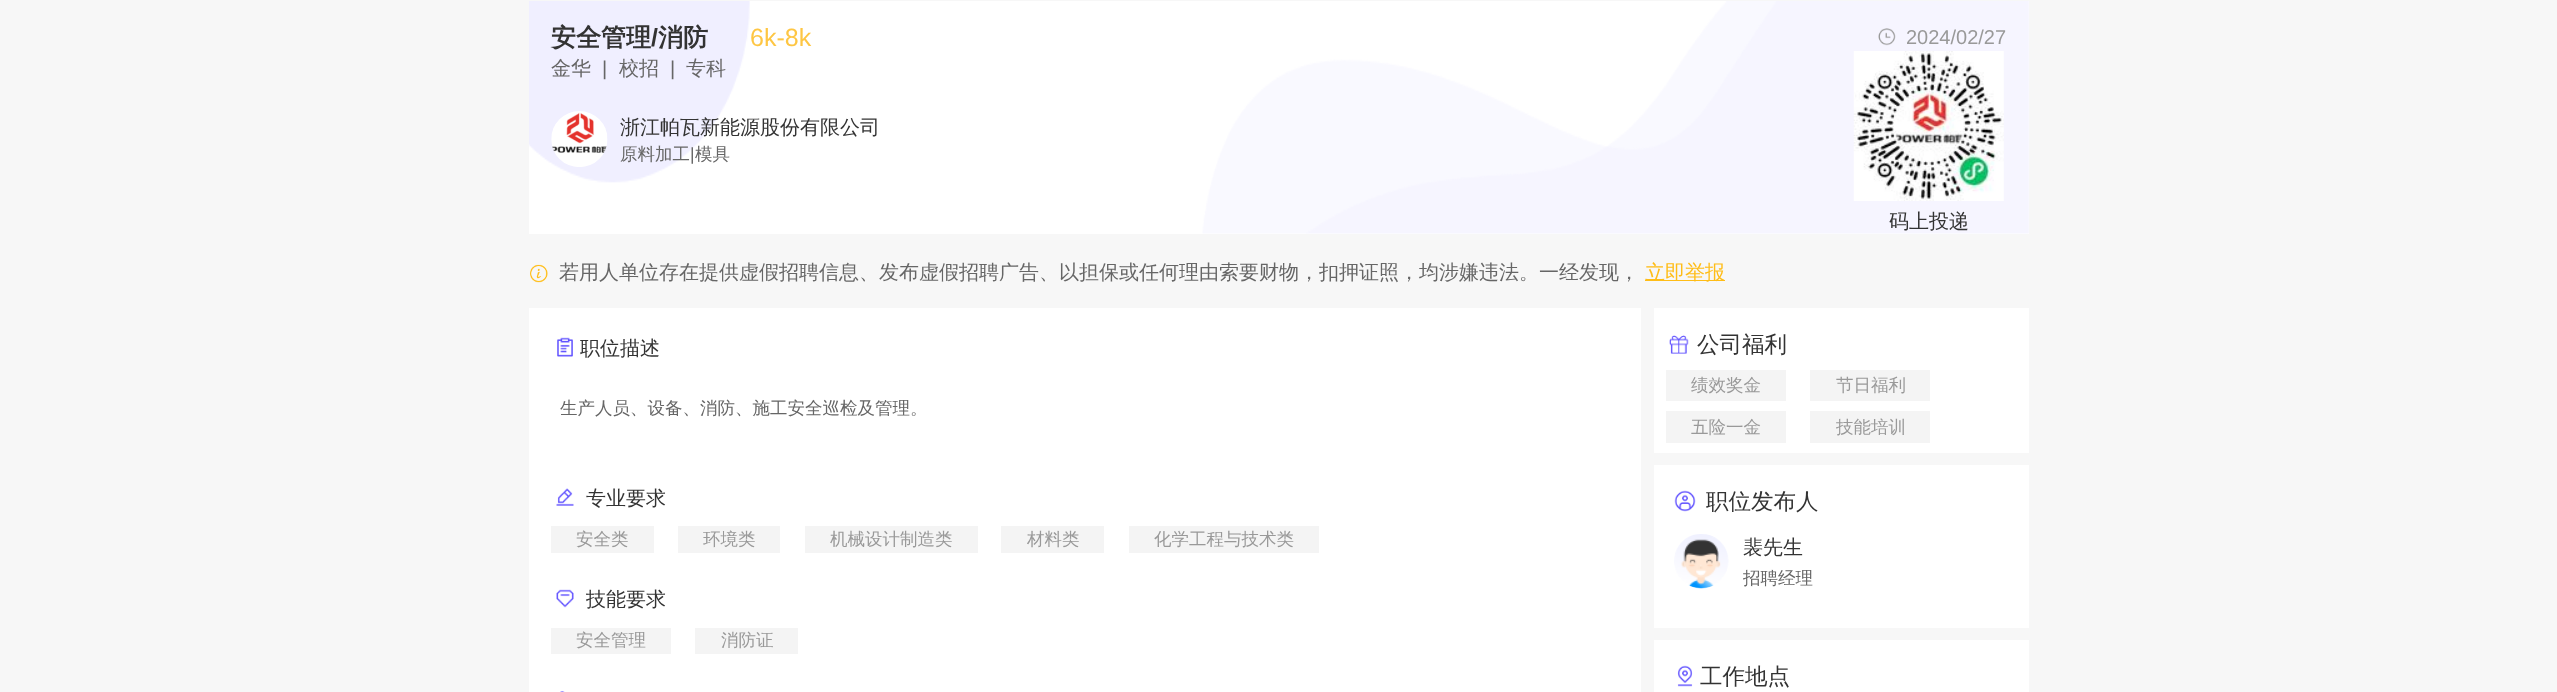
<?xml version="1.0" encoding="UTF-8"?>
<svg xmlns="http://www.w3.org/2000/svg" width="2557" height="692">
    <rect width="100%" height="100%" fill="#F7F7F7"/>
    <rect x="529" y="1" width="1500" height="233" fill="#FFFFFF"/>
    <image x="529" y="1" width="1500" height="233" href="img_01.png"/>
    <text x="551" y="46" font-family="WenQuanYi Zen Hei" font-size="25" font-weight="700" fill="#333333">安全管理</text>
    <text x="651" y="46" font-family="Liberation Sans" font-size="25" font-weight="700" fill="#333333">/</text>
    <text x="658" y="46" font-family="WenQuanYi Zen Hei" font-size="25" font-weight="700" fill="#333333">消防</text>
    <text x="750" y="46" font-family="Liberation Sans" font-size="25" fill="#FEC643">6k-8k</text>
    <image x="1878" y="28" width="18" height="18" href="img_02.png"/>
    <text x="1906" y="44" font-family="Liberation Sans" font-size="20" fill="#999999">2024/02/27</text>
    <text x="551" y="75" font-family="WenQuanYi Zen Hei" font-size="20" font-weight="500" fill="#666666">金华</text>
    <text x="602" y="75" font-family="Liberation Sans" font-size="20" fill="#666666">|</text>
    <text x="619" y="75" font-family="WenQuanYi Zen Hei" font-size="20" font-weight="500" fill="#666666">校招</text>
    <text x="670" y="75" font-family="Liberation Sans" font-size="20" fill="#666666">|</text>
    <text x="686" y="75" font-family="WenQuanYi Zen Hei" font-size="20" font-weight="500" fill="#666666">专科</text>
    <image x="551" y="111" width="57" height="56" href="img_03.png"/>
    <text x="620" y="134" font-family="WenQuanYi Zen Hei" font-size="20" font-weight="500" fill="#333333">浙江帕瓦新能源股份有限公司</text>
    <text x="620" y="160" font-family="WenQuanYi Zen Hei" font-size="17.5" font-weight="500" fill="#666666">原料加工</text>
    <text x="690" y="160" font-family="Liberation Sans" font-size="17.5" fill="#666666">|</text>
    <text x="695" y="160" font-family="WenQuanYi Zen Hei" font-size="17.5" font-weight="500" fill="#666666">模具</text>
    <image x="1853" y="51" width="151" height="150" href="img_04.png"/>
    <text x="1889" y="228" font-family="WenQuanYi Zen Hei" font-size="20" font-weight="500" fill="#333333">码上投递</text>
    <image x="530" y="264" width="18" height="19" href="img_05.png"/>
    <text x="559" y="279" font-family="WenQuanYi Zen Hei" font-size="20" font-weight="500" fill="#666666">若用人单位存在提供虚假招聘信息、发布虚假招聘广告、以担保或任何理由索要财物，扣押证照，均涉嫌违法。一经发现，</text>
    <rect x="1645" y="280" width="80" height="1" fill="#FFBD17"/>
    <text x="1645" y="279" font-family="WenQuanYi Zen Hei" font-size="20" font-weight="500" fill="#FFBD17">立即举报</text>
    <rect x="529" y="308" width="1112" height="384" fill="#FFFFFF"/>
    <image x="557" y="337" width="16" height="20" href="img_06.png"/>
    <text x="580" y="355" font-family="WenQuanYi Zen Hei" font-size="20" font-weight="500" fill="#333333">职位描述</text>
    <text x="560" y="414" font-family="WenQuanYi Zen Hei" font-size="17.5" font-weight="500" fill="#666666">生产人员、设备、消防、施工安全巡检及管理。</text>
    <image x="556" y="488" width="18" height="18" href="img_07.png"/>
    <text x="586" y="505" font-family="WenQuanYi Zen Hei" font-size="20" font-weight="500" fill="#333333">专业要求</text>
    <rect x="551" y="526" width="103" height="27" fill="#F4F4F4"/>
    <text x="576" y="545" font-family="WenQuanYi Zen Hei" font-size="17.5" font-weight="500" fill="#999999">安全类</text>
    <rect x="678" y="526" width="102" height="27" fill="#F4F4F4"/>
    <text x="703" y="545" font-family="WenQuanYi Zen Hei" font-size="17.5" font-weight="500" fill="#999999">环境类</text>
    <rect x="805" y="526" width="173" height="27" fill="#F4F4F4"/>
    <text x="830" y="545" font-family="WenQuanYi Zen Hei" font-size="17.5" font-weight="500" fill="#999999">机械设计制造类</text>
    <rect x="1001" y="526" width="103" height="27" fill="#F4F4F4"/>
    <text x="1027" y="545" font-family="WenQuanYi Zen Hei" font-size="17.5" font-weight="500" fill="#999999">材料类</text>
    <rect x="1129" y="526" width="190" height="27" fill="#F4F4F4"/>
    <text x="1154" y="545" font-family="WenQuanYi Zen Hei" font-size="17.5" font-weight="500" fill="#999999">化学工程与技术类</text>
    <image x="556" y="589" width="18" height="19" href="img_08.png"/>
    <text x="586" y="606" font-family="WenQuanYi Zen Hei" font-size="20" font-weight="500" fill="#333333">技能要求</text>
    <rect x="551" y="628" width="120" height="26" fill="#F4F4F4"/>
    <text x="576" y="646" font-family="WenQuanYi Zen Hei" font-size="17.5" font-weight="500" fill="#999999">安全管理</text>
    <rect x="695" y="628" width="103" height="26" fill="#F4F4F4"/>
    <text x="721" y="646" font-family="WenQuanYi Zen Hei" font-size="17.5" font-weight="500" fill="#999999">消防证</text>
    <image x="560" y="691" width="5" height="1" href="img_09.png"/>
    <rect x="1654" y="308" width="375" height="145" fill="#FFFFFF"/>
    <image x="1669" y="335" width="20" height="19" href="img_10.png"/>
    <text x="1697" y="352" font-family="WenQuanYi Zen Hei" font-size="22.5" font-weight="500" fill="#333333">公司福利</text>
    <rect x="1666" y="370" width="120" height="31" fill="#F4F4F4"/>
    <text x="1691" y="391" font-family="WenQuanYi Zen Hei" font-size="17.5" font-weight="500" fill="#999999">绩效奖金</text>
    <rect x="1810" y="370" width="120" height="31" fill="#F4F4F4"/>
    <text x="1836" y="391" font-family="WenQuanYi Zen Hei" font-size="17.5" font-weight="500" fill="#999999">节日福利</text>
    <rect x="1666" y="411" width="120" height="32" fill="#F4F4F4"/>
    <text x="1691" y="433" font-family="WenQuanYi Zen Hei" font-size="17.5" font-weight="500" fill="#999999">五险一金</text>
    <rect x="1810" y="411" width="120" height="32" fill="#F4F4F4"/>
    <text x="1836" y="433" font-family="WenQuanYi Zen Hei" font-size="17.5" font-weight="500" fill="#999999">技能培训</text>
    <rect x="1654" y="465" width="375" height="163" fill="#FFFFFF"/>
    <image x="1674" y="490" width="22" height="22" href="img_11.png"/>
    <text x="1706" y="509" font-family="WenQuanYi Zen Hei" font-size="22.5" font-weight="500" fill="#333333">职位发布人</text>
    <image x="1674" y="534" width="55" height="55" href="img_12.png"/>
    <text x="1743" y="554" font-family="WenQuanYi Zen Hei" font-size="20" font-weight="500" fill="#333333">裴先生</text>
    <text x="1743" y="584" font-family="WenQuanYi Zen Hei" font-size="17.5" font-weight="500" fill="#666666">招聘经理</text>
    <rect x="1654" y="640" width="375" height="52" fill="#FFFFFF"/>
    <image x="1677" y="665" width="16" height="22" href="img_13.png"/>
    <text x="1700" y="684" font-family="WenQuanYi Zen Hei" font-size="22.5" font-weight="500" fill="#333333">工作地点</text>
</svg>
